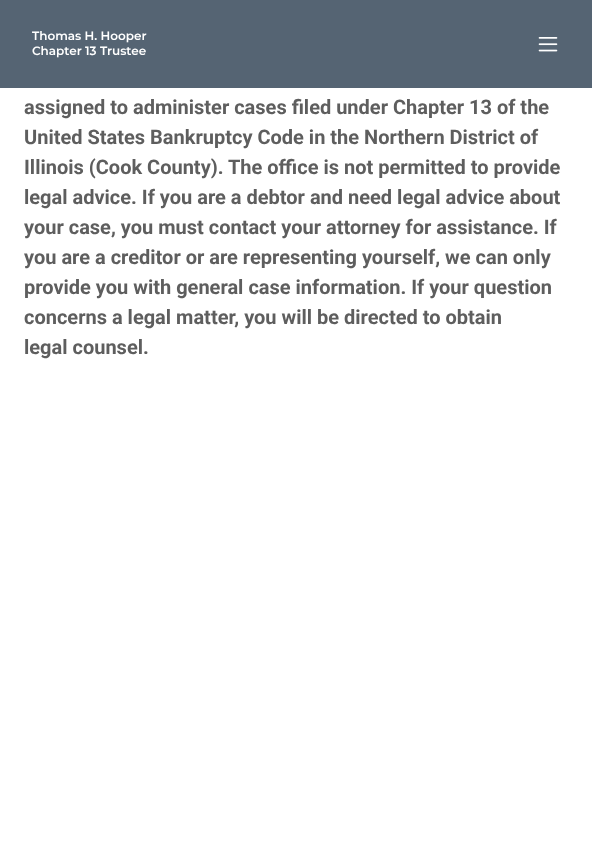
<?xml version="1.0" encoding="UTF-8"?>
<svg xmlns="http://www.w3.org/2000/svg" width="592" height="858">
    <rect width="100%" height="100%" fill="#FFFFFF"/>
    <rect x="0" y="0" width="592" height="88" fill="#556473"/>
    <text font-family="Montserrat" font-size="12" font-weight="600" fill="#FFFFFF">
        <tspan x="32" y="40">Thomas H. Hooper</tspan>
        <tspan x="32" y="55">Chapter 13 Trustee</tspan>
    </text>
    <image x="538" y="37" width="20" height="15" href="img_01.png"/>
    <text font-family="Roboto" font-size="20" font-weight="700" fill="#5E5E5E">
        <tspan x="24" y="114">assigned to administer cases filed under Chapter 13 of the</tspan>
        <tspan x="24" y="144">United States Bankruptcy Code in the Northern District of</tspan>
        <tspan x="24" y="174">Illinois (Cook County). The office is not permitted to provide</tspan>
        <tspan x="24" y="204">legal advice. If you are a debtor and need legal advice about</tspan>
        <tspan x="24" y="234">your case, you must contact your attorney for assistance. If</tspan>
        <tspan x="24" y="264">you are a creditor or are representing yourself, we can only</tspan>
        <tspan x="24" y="294">provide you with general case information. If your question</tspan>
        <tspan x="24" y="324">concerns a legal matter, you will be directed to obtain</tspan>
        <tspan x="24" y="354">legal counsel.</tspan>
    </text>
</svg>
